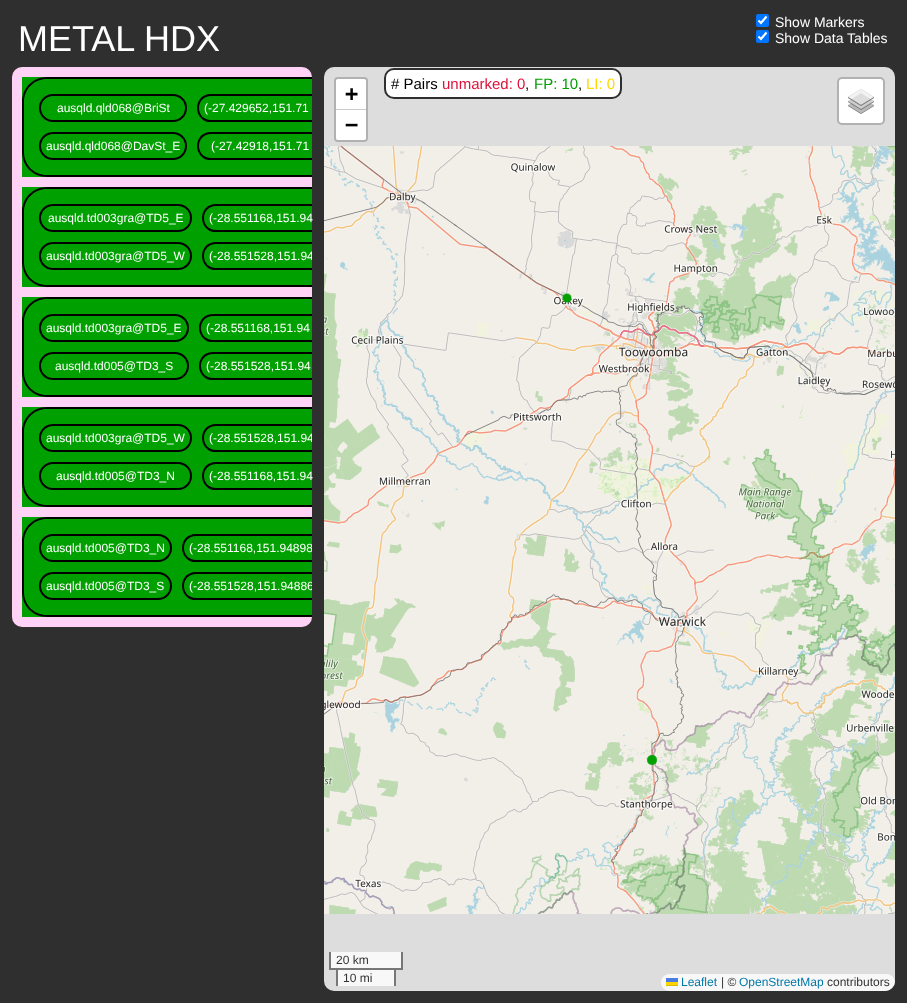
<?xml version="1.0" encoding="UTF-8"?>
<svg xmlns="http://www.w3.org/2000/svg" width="907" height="1003">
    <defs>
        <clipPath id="clip1"><rect x="12" y="67" width="300" height="560" rx="10"/></clipPath>
    </defs>
    <rect width="100%" height="100%" fill="#2F2F2F"/>
    <text x="18" y="51" font-family="Liberation Sans" font-size="36" fill="#FFFFFF">METAL HDX</text>
    <rect x="756" y="14" width="13" height="13" rx="2" fill="#0075FF"/>
    <path d="M 758.5 20.5 L 761 23 L 766.5 16.5" fill="none" stroke="#FFFFFF" stroke-width="2.1"/>
    <text x="775" y="27" font-family="Liberation Sans" font-size="14" fill="#FFFFFF">Show Markers</text>
    <rect x="756" y="30" width="13" height="13" rx="2" fill="#0075FF"/>
    <path d="M 758.5 36.5 L 761 39 L 766.5 32.5" fill="none" stroke="#FFFFFF" stroke-width="2.1"/>
    <text x="775" y="43" font-family="Liberation Sans" font-size="14" fill="#FFFFFF">Show Data Tables</text>
    <rect x="324" y="67" width="571" height="924" rx="10" fill="#DDDDDD"/>
    <rect x="385" y="69" width="236" height="29" rx="9" fill="#FFFFFF" stroke="#2F2F2F" stroke-width="2"/>
    <text x="391" y="89" font-family="Liberation Sans" font-size="15" fill="#000000"># Pairs</text>
    <text x="442" y="89" font-family="Liberation Sans" font-size="15" fill="#DC143C">unmarked: 0</text>
    <text x="525" y="89" font-family="Liberation Sans" font-size="15" fill="#000000">,</text>
    <text x="534" y="89" font-family="Liberation Sans" font-size="15" fill="#00A000">FP: 10</text>
    <text x="578" y="89" font-family="Liberation Sans" font-size="15" fill="#000000">,</text>
    <text x="586" y="89" font-family="Liberation Sans" font-size="15" fill="#FFD700">LI: 0</text>
    <rect x="12" y="67" width="300" height="560" rx="10" fill="#FFD2F6"/>
    <rect x="22" y="77" width="290" height="100" fill="#00A000"/>
    <path d="M 47 77 C 33 77 22 88 22 102 V 152 C 22 166 33 177 47 177 H 312 V 175 H 47 C 34 175 24 165 24 152 V 102 C 24 89 34 79 47 79 H 312 V 77 Z" fill="#000000"/>
    <rect x="40" y="95" width="146" height="26" rx="13" fill="none" stroke="#000000" stroke-width="2"/>
    <text x="57" y="112" font-family="Liberation Sans" font-size="12" fill="#FFFFFF">ausqld.qld068@BriSt</text>
    <path d="M 211 94 C 194 94 192 118 208 122 H 312 V 120 H 211 C 204 120 199 115 199 108 C 199 101 204 96 211 96 H 312 V 94 Z" fill="#000000"/>
    <text x="204" y="112" font-family="Liberation Sans" font-size="12" fill="#FFFFFF">(-27.429652,151.71</text>
    <rect x="40" y="133" width="146" height="26" rx="13" fill="none" stroke="#000000" stroke-width="2"/>
    <text x="46" y="150" font-family="Liberation Sans" font-size="12" fill="#FFFFFF">ausqld.qld068@DavSt_E</text>
    <path d="M 211 132 C 194 132 192 156 208 160 H 312 V 158 H 211 C 204 158 199 153 199 146 C 199 139 204 134 211 134 H 312 V 132 Z" fill="#000000"/>
    <text x="211" y="150" font-family="Liberation Sans" font-size="12" fill="#FFFFFF">(-27.42918,151.71</text>
    <rect x="22" y="187" width="290" height="100" fill="#00A000"/>
    <path d="M 47 187 C 33 187 22 198 22 212 V 262 C 22 276 33 287 47 287 H 312 V 285 H 47 C 34 285 24 275 24 262 V 212 C 24 199 34 189 47 189 H 312 V 187 Z" fill="#000000"/>
    <rect x="40" y="205" width="151" height="26" rx="13" fill="none" stroke="#000000" stroke-width="2"/>
    <text x="48" y="222" font-family="Liberation Sans" font-size="12" fill="#FFFFFF">ausqld.td003gra@TD5_E</text>
    <path d="M 216 204 C 199 204 197 228 213 232 H 312 V 230 H 216 C 209 230 204 225 204 218 C 204 211 209 206 216 206 H 312 V 204 Z" fill="#000000"/>
    <text x="209" y="222" font-family="Liberation Sans" font-size="12" fill="#FFFFFF">(-28.551168,151.94</text>
    <rect x="40" y="243" width="151" height="26" rx="13" fill="none" stroke="#000000" stroke-width="2"/>
    <text x="46" y="260" font-family="Liberation Sans" font-size="12" fill="#FFFFFF">ausqld.td003gra@TD5_W</text>
    <path d="M 216 242 C 199 242 197 266 213 270 H 312 V 268 H 216 C 209 268 204 263 204 256 C 204 249 209 244 216 244 H 312 V 242 Z" fill="#000000"/>
    <g clip-path="url(#clip1)">
        <text x="209" y="260" font-family="Liberation Sans" font-size="12" fill="#FFFFFF">(-28.551528,151.94</text>
    </g>
    <rect x="22" y="297" width="290" height="100" fill="#00A000"/>
    <path d="M 47 297 C 33 297 22 308 22 322 V 372 C 22 386 33 397 47 397 H 312 V 395 H 47 C 34 395 24 385 24 372 V 322 C 24 309 34 299 47 299 H 312 V 297 Z" fill="#000000"/>
    <rect x="40" y="315" width="148" height="26" rx="13" fill="none" stroke="#000000" stroke-width="2"/>
    <text x="46" y="332" font-family="Liberation Sans" font-size="12" fill="#FFFFFF">ausqld.td003gra@TD5_E</text>
    <path d="M 213 314 C 196 314 194 338 210 342 H 312 V 340 H 213 C 206 340 201 335 201 328 C 201 321 206 316 213 316 H 312 V 314 Z" fill="#000000"/>
    <text x="206" y="332" font-family="Liberation Sans" font-size="12" fill="#FFFFFF">(-28.551168,151.94</text>
    <rect x="40" y="353" width="148" height="26" rx="13" fill="none" stroke="#000000" stroke-width="2"/>
    <text x="55" y="370" font-family="Liberation Sans" font-size="12" fill="#FFFFFF">ausqld.td005@TD3_S</text>
    <path d="M 213 352 C 196 352 194 376 210 380 H 312 V 378 H 213 C 206 378 201 373 201 366 C 201 359 206 354 213 354 H 312 V 352 Z" fill="#000000"/>
    <text x="206" y="370" font-family="Liberation Sans" font-size="12" fill="#FFFFFF">(-28.551528,151.94</text>
    <rect x="22" y="407" width="290" height="100" fill="#00A000"/>
    <path d="M 47 407 C 33 407 22 418 22 432 V 482 C 22 496 33 507 47 507 H 312 V 505 H 47 C 34 505 24 495 24 482 V 432 C 24 419 34 409 47 409 H 312 V 407 Z" fill="#000000"/>
    <rect x="40" y="425" width="151" height="26" rx="13" fill="none" stroke="#000000" stroke-width="2"/>
    <text x="46" y="442" font-family="Liberation Sans" font-size="12" fill="#FFFFFF">ausqld.td003gra@TD5_W</text>
    <path d="M 216 424 C 199 424 197 448 213 452 H 312 V 450 H 216 C 209 450 204 445 204 438 C 204 431 209 426 216 426 H 312 V 424 Z" fill="#000000"/>
    <g clip-path="url(#clip1)">
        <text x="209" y="442" font-family="Liberation Sans" font-size="12" fill="#FFFFFF">(-28.551528,151.94</text>
    </g>
    <rect x="40" y="463" width="151" height="26" rx="13" fill="none" stroke="#000000" stroke-width="2"/>
    <text x="56" y="480" font-family="Liberation Sans" font-size="12" fill="#FFFFFF">ausqld.td005@TD3_N</text>
    <path d="M 216 462 C 199 462 197 486 213 490 H 312 V 488 H 216 C 209 488 204 483 204 476 C 204 469 209 464 216 464 H 312 V 462 Z" fill="#000000"/>
    <text x="209" y="480" font-family="Liberation Sans" font-size="12" fill="#FFFFFF">(-28.551168,151.94</text>
    <rect x="22" y="517" width="290" height="100" fill="#00A000"/>
    <path d="M 47 517 C 33 517 22 528 22 542 V 592 C 22 606 33 617 47 617 H 312 V 615 H 47 C 34 615 24 605 24 592 V 542 C 24 529 34 519 47 519 H 312 V 517 Z" fill="#000000"/>
    <rect x="40" y="535" width="131" height="26" rx="13" fill="none" stroke="#000000" stroke-width="2"/>
    <text x="46" y="552" font-family="Liberation Sans" font-size="12" fill="#FFFFFF">ausqld.td005@TD3_N</text>
    <path d="M 196 534 C 179 534 177 558 193 562 H 312 V 560 H 196 C 189 560 184 555 184 548 C 184 541 189 536 196 536 H 312 V 534 Z" fill="#000000"/>
    <g clip-path="url(#clip1)">
        <text x="189" y="552" font-family="Liberation Sans" font-size="12" fill="#FFFFFF">(-28.551168,151.94898</text>
    </g>
    <rect x="40" y="573" width="131" height="26" rx="13" fill="none" stroke="#000000" stroke-width="2"/>
    <text x="46" y="590" font-family="Liberation Sans" font-size="12" fill="#FFFFFF">ausqld.td005@TD3_S</text>
    <path d="M 196 572 C 179 572 177 596 193 600 H 312 V 598 H 196 C 189 598 184 593 184 586 C 184 579 189 574 196 574 H 312 V 572 Z" fill="#000000"/>
    <g clip-path="url(#clip1)">
        <text x="189" y="590" font-family="Liberation Sans" font-size="12" fill="#FFFFFF">(-28.551528,151.94886</text>
    </g>
    <rect x="338" y="970" width="56" height="16" fill="#F8F8F8"/>
    <rect x="335" y="78" width="32" height="63" rx="3" fill="none" stroke="#B1B1B1" stroke-width="2"/>
    <path d="M 338 79 H 364 C 365 79 366 80 366 81 V 110 H 336 V 81 C 336 80 337 79 338 79 Z" fill="#FFFFFF"/>
    <rect x="336" y="109" width="30" height="1" fill="#CCCCCC"/>
    <text x="345" y="101" font-family="DejaVu Sans Mono" font-size="22" font-weight="700" fill="#000000">+</text>
    <path d="M 336 110 H 366 V 138 C 366 139 365 140 364 140 H 338 C 337 140 336 139 336 138 Z" fill="#FFFFFF"/>
    <text x="345" y="132" font-family="DejaVu Sans Mono" font-size="22" font-weight="700" fill="#000000">−</text>
    <rect x="838" y="78" width="46" height="46" rx="4" fill="#FFFFFF" stroke="#B1B1B1" stroke-width="2"/>
    <image x="848" y="89" width="26" height="25" href="img_01.png"/>
    <rect x="331" y="952" width="70" height="16" fill="#F8F8F8"/>
    <rect x="401" y="952" width="2" height="18" fill="#777777"/>
    <rect x="329" y="968" width="74" height="2" fill="#777777"/>
    <rect x="329" y="952" width="2" height="18" fill="#777777"/>
    <text x="336" y="964" font-family="Liberation Sans" font-size="12" fill="#333333">20 km</text>
    <rect x="394" y="968" width="2" height="18" fill="#777777"/>
    <rect x="336" y="968" width="2" height="18" fill="#777777"/>
    <text x="343" y="982" font-family="Liberation Sans" font-size="12" fill="#333333">10 mi</text>
    <path d="M 669.5 974 H 886.5 C 891 974 895 978 895 982.5 V 981 C 895 986.5 890.5 991 885 991 H 669.5 C 665 991 661 987 661 982.5 C 661 978 665 974 669.5 974 Z" fill="#FFFFFF" fill-opacity="0.8"/>
    <text x="681" y="986" font-family="Liberation Sans" font-size="12" fill="#0078A8">Leaflet</text>
    <rect x="666" y="978" width="12" height="4" fill="#4C7BE1"/>
    <rect x="666" y="982" width="12" height="3" fill="#FFD500"/>
    <rect x="666" y="985" width="12" height="1" fill="#E0BC00"/>
    <text x="721" y="986" font-family="Liberation Sans" font-size="12" fill="#333333">| ©</text>
    <text x="739" y="986" font-family="Liberation Sans" font-size="12" fill="#0078A8">OpenStreetMap</text>
    <text x="827" y="986" font-family="Liberation Sans" font-size="12" fill="#333333">contributors</text>
    <image x="324" y="146" width="45" height="256" href="img_02.png"/>
    <image x="369" y="146" width="256" height="256" href="img_03.png"/>
    <image x="625" y="146" width="256" height="256" href="img_04.png"/>
    <image x="881" y="146" width="14" height="256" href="img_05.png"/>
    <image x="324" y="402" width="45" height="256" href="img_06.png"/>
    <image x="369" y="402" width="256" height="256" href="img_07.png"/>
    <image x="625" y="402" width="256" height="256" href="img_08.png"/>
    <image x="881" y="402" width="14" height="256" href="img_09.png"/>
    <image x="324" y="658" width="45" height="256" href="img_10.png"/>
    <image x="369" y="658" width="256" height="256" href="img_11.png"/>
    <image x="625" y="658" width="256" height="256" href="img_12.png"/>
    <image x="881" y="658" width="14" height="256" href="img_13.png"/>
    <image x="562" y="293" width="95" height="472" href="img_14.png"/>
    <circle cx="567" cy="298" r="4" fill="#00A000"/>
    <circle cx="652" cy="760" r="4" fill="#00A000"/>
</svg>
